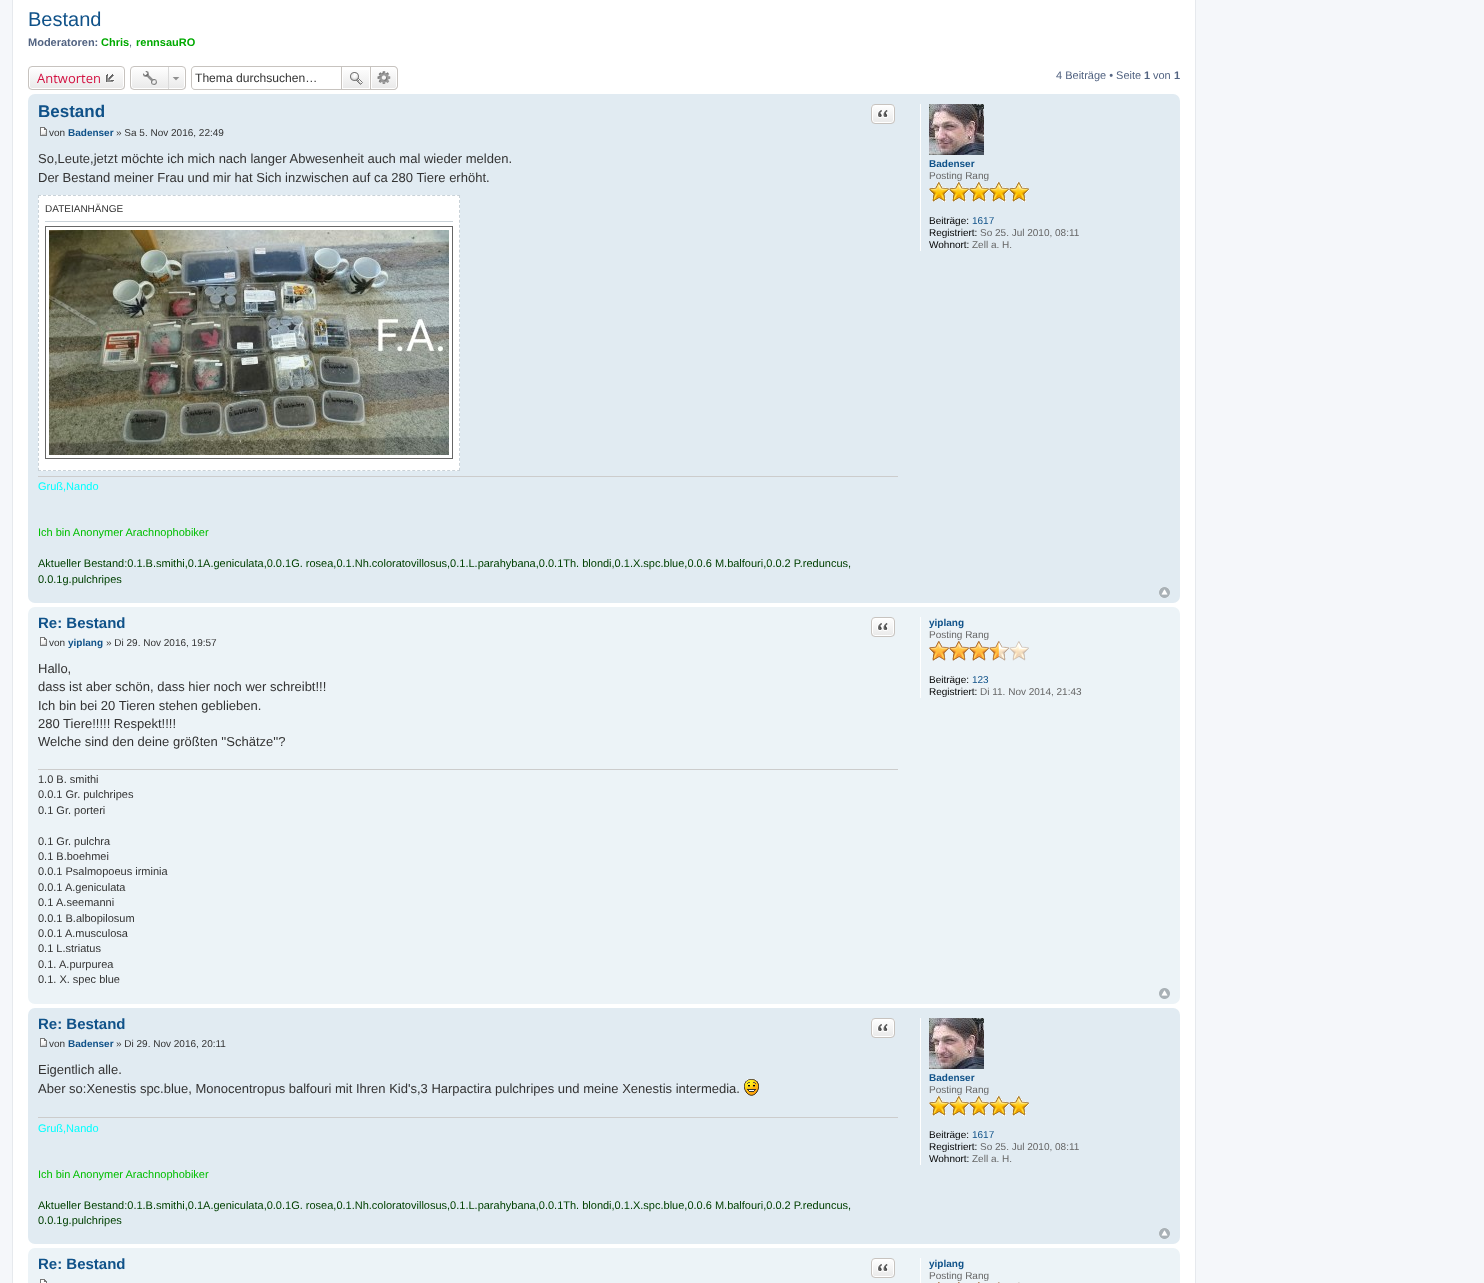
<?xml version="1.0" encoding="UTF-8"?>
<svg xmlns="http://www.w3.org/2000/svg" width="1484" height="1283">
    <defs>
        <clipPath id="clip1"><rect x="28" y="66" width="97" height="24" rx="4"/></clipPath>
        <linearGradient id="g1" gradientUnits="userSpaceOnUse" x1="77" y1="67" x2="77" y2="89"><stop offset="0" stop-color="#FFFFFF"/><stop offset="1" stop-color="#E9E9E9"/></linearGradient>
        <clipPath id="clip2"><rect x="130" y="66" width="56" height="24" rx="4"/></clipPath>
        <linearGradient id="g2" gradientUnits="userSpaceOnUse" x1="158" y1="67" x2="158" y2="89"><stop offset="0" stop-color="#FFFFFF"/><stop offset="1" stop-color="#E9E9E9"/></linearGradient>
        <linearGradient id="g3" gradientUnits="userSpaceOnUse" x1="356" y1="67" x2="356" y2="89"><stop offset="0" stop-color="#FFFFFF"/><stop offset="1" stop-color="#E9E9E9"/></linearGradient>
        <linearGradient id="g4" gradientUnits="userSpaceOnUse" x1="384" y1="67" x2="384" y2="89"><stop offset="0" stop-color="#FFFFFF"/><stop offset="1" stop-color="#E9E9E9"/></linearGradient>
        <clipPath id="clip3"><rect x="871" y="104" width="24" height="20" rx="4"/></clipPath>
        <linearGradient id="g5" gradientUnits="userSpaceOnUse" x1="883" y1="105" x2="883" y2="123"><stop offset="0" stop-color="#FFFFFF"/><stop offset="1" stop-color="#E9E9E9"/></linearGradient>
        <clipPath id="clip4"><rect x="871" y="617" width="24" height="20" rx="4"/></clipPath>
        <linearGradient id="g6" gradientUnits="userSpaceOnUse" x1="883" y1="618" x2="883" y2="636"><stop offset="0" stop-color="#FFFFFF"/><stop offset="1" stop-color="#E9E9E9"/></linearGradient>
        <clipPath id="clip5"><rect x="871" y="1018" width="24" height="20" rx="4"/></clipPath>
        <linearGradient id="g7" gradientUnits="userSpaceOnUse" x1="883" y1="1019" x2="883" y2="1037"><stop offset="0" stop-color="#FFFFFF"/><stop offset="1" stop-color="#E9E9E9"/></linearGradient>
        <clipPath id="clip6"><rect x="871" y="1258" width="24" height="20" rx="4"/></clipPath>
        <linearGradient id="g8" gradientUnits="userSpaceOnUse" x1="883" y1="1259" x2="883" y2="1277"><stop offset="0" stop-color="#FFFFFF"/><stop offset="1" stop-color="#E9E9E9"/></linearGradient>
    </defs>
    <rect width="100%" height="100%" fill="#F5F7FA"/>
    <rect x="12.5" y="-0.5" width="1183" height="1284" fill="#FFFFFF" stroke="#E6E9ED"/>
    <text x="28" y="26" font-family="Liberation Sans" font-size="20" fill="#105289">Bestand</text>
    <text x="28" y="46" font-family="Liberation Sans" font-size="11" font-weight="700" fill="#536482">Moderatoren:</text>
    <text x="101" y="46" font-family="Liberation Sans" font-size="11" font-weight="700" fill="#00AA00">Chris</text>
    <text x="129" y="46" font-family="Liberation Sans" font-size="11" fill="#536482">,</text>
    <text x="136" y="46" font-family="Liberation Sans" font-size="11" font-weight="700" fill="#00AA00">rennsauRO</text>
    <g clip-path="url(#clip1)">
        <rect x="28" y="67" width="97" height="22" fill="url(#g1)"/>
    </g>
    <rect x="29.5" y="67.5" width="94" height="21" rx="2.5" fill="none" stroke="#FFFFFF"/>
    <rect x="28.5" y="66.5" width="96" height="23" rx="3.5" fill="none" stroke="#C7C3BF"/>
    <text x="37" y="83" font-family="Open Sans" font-size="13" fill="#D31141">Antworten</text>
    <image x="105" y="74" width="10" height="9" href="img_01.png"/>
    <g clip-path="url(#clip2)">
        <rect x="130" y="67" width="56" height="22" fill="url(#g2)"/>
    </g>
    <rect x="131.5" y="67.5" width="53" height="21" rx="2.5" fill="none" stroke="#FFFFFF"/>
    <rect x="130.5" y="66.5" width="55" height="23" rx="3.5" fill="none" stroke="#C7C3BF"/>
    <image x="143" y="71" width="14" height="15" href="img_02.png"/>
    <image x="172" y="77" width="8" height="4" href="img_03.png"/>
    <rect x="168" y="67" width="1" height="22" fill="#DADADA"/>
    <path d="M 195 66 H 341 V 90 H 195 C 193 90 191 88 191 86 V 70 C 191 68 193 66 195 66 Z M 195 67 H 341 V 89 H 195 C 193 89 192 88 192 86 V 70 C 192 68 193 67 195 67 Z" fill="#C7C3BF" fill-rule="evenodd"/>
    <text x="195" y="82" font-family="Liberation Sans" font-size="12.1" fill="#333333">Thema durchsuchen…</text>
    <rect x="343" y="70" width="26" height="18" fill="url(#g3)"/>
    <rect x="341.5" y="66.5" width="29" height="23" fill="none" stroke="#C7C3BF"/>
    <image x="350" y="72" width="13" height="13" href="img_04.png"/>
    <path d="M 371.5 67.5 H 394 C 395.5 67.5 396.5 68.5 396.5 70 V 86 C 396.5 87.5 395.5 88.5 394 88.5 H 371.5 Z" fill="url(#g4)" stroke="#FFFFFF"/>
    <path d="M 371 66 H 394 C 396 66 398 68 398 70 V 86 C 398 88 396 90 394 90 H 371 Z M 371 67 H 394 C 395.5 67 397 68.5 397 70 V 86 C 397 87.5 395.5 89 394 89 H 371 Z" fill="#C7C3BF" fill-rule="evenodd"/>
    <image x="377" y="71" width="14" height="13" href="img_05.png"/>
    <text x="1056" y="79" font-family="Liberation Sans" font-size="11" fill="#536482">4 Beiträge • Seite</text>
    <text x="1144" y="79" font-family="Liberation Sans" font-size="11" font-weight="700" fill="#536482">1</text>
    <text x="1153" y="79" font-family="Liberation Sans" font-size="11" fill="#536482">von</text>
    <text x="1174" y="79" font-family="Liberation Sans" font-size="11" font-weight="700" fill="#536482">1</text>
    <rect x="28" y="94" width="1152" height="509" rx="7" fill="#E1EBF2"/>
    <text x="38" y="117" font-family="Liberation Sans" font-size="17" font-weight="700" fill="#105289">Bestand</text>
    <g clip-path="url(#clip3)">
        <rect x="871" y="105" width="24" height="18" fill="url(#g5)"/>
    </g>
    <rect x="872.5" y="105.5" width="21" height="17" rx="2.5" fill="none" stroke="#FFFFFF"/>
    <rect x="871.5" y="104.5" width="23" height="19" rx="3.5" fill="none" stroke="#C7C3BF"/>
    <image x="877" y="110" width="11" height="8" href="img_06.png"/>
    <image x="40" y="127" width="7" height="9" href="img_07.png"/>
    <text x="49" y="136" font-family="Liberation Sans" font-size="10" fill="#333333">von</text>
    <text x="68" y="136" font-family="Liberation Sans" font-size="10" font-weight="700" fill="#105289">Badenser</text>
    <text x="116" y="136" font-family="Liberation Sans" font-size="10" fill="#333333">» Sa 5. Nov 2016, 22:49</text>
    <text font-family="Liberation Sans" font-size="13" fill="#333333">
        <tspan x="38" y="163">So,Leute,jetzt möchte ich mich nach langer Abwesenheit auch mal wieder melden.</tspan>
        <tspan x="38" y="182">Der Bestand meiner Frau und mir hat Sich inzwischen auf ca 280 Tiere erhöht.</tspan>
    </text>
    <rect x="38" y="195" width="422" height="276" fill="#FFFFFF"/>
    <path d="M 38 195.5 H 460" fill="none" stroke="#C9D2D8" stroke-dasharray="3 1.99"/>
    <path d="M 459.5 195 V 471" fill="none" stroke="#C9D2D8" stroke-dasharray="3 1.96"/>
    <path d="M 38 470.5 H 460" fill="none" stroke="#C9D2D8" stroke-dasharray="3 1.99"/>
    <path d="M 38.5 195 V 471" fill="none" stroke="#C9D2D8" stroke-dasharray="3 1.96"/>
    <text x="45" y="212" font-family="Liberation Sans" font-size="10" fill="#333333">DATEIANHÄNGE</text>
    <rect x="45" y="221" width="408" height="1" fill="#C9D2D8"/>
    <rect x="45.5" y="226.5" width="407" height="232" fill="none" stroke="#666666"/>
    <image x="49" y="230" width="400" height="225" href="img_08.png"/>
    <rect x="38" y="476" width="860" height="1" fill="#CCCCCC"/>
    <text x="38" y="490" font-family="Liberation Sans" font-size="11" fill="#00FFFF">Gruß,Nando</text>
    <text x="38" y="536" font-family="Liberation Sans" font-size="11" fill="#00BF00">Ich bin Anonymer Arachnophobiker</text>
    <text font-family="Liberation Sans" font-size="11" fill="#004000">
        <tspan x="38" y="567">Aktueller Bestand:0.1.B.smithi,0.1A.geniculata,0.0.1G. rosea,0.1.Nh.coloratovillosus,0.1.L.parahybana,0.0.1Th. blondi,0.1.X.spc.blue,0.0.6 M.balfouri,0.0.2 P.reduncus,</tspan>
        <tspan x="38" y="583">0.0.1g.pulchripes</tspan>
    </text>
    <rect x="920" y="104" width="1" height="147" fill="#FFFFFF"/>
    <image x="929" y="104" width="55" height="51" href="img_09.png"/>
    <text x="929" y="167" font-family="Liberation Sans" font-size="10" font-weight="700" fill="#105289">Badenser</text>
    <text x="929" y="179" font-family="Liberation Sans" font-size="10" fill="#666666">Posting Rang</text>
    <image x="929" y="182" width="100" height="20" href="img_10.png"/>
    <text x="929" y="224" font-family="Liberation Sans" font-size="10" fill="#000000">Beiträge:</text>
    <text x="972" y="224" font-family="Liberation Sans" font-size="10" fill="#105289">1617</text>
    <text x="929" y="236" font-family="Liberation Sans" font-size="10" fill="#000000">Registriert:</text>
    <text x="980" y="236" font-family="Liberation Sans" font-size="10" fill="#666666">So 25. Jul 2010, 08:11</text>
    <text x="929" y="248" font-family="Liberation Sans" font-size="10" fill="#000000">Wohnort:</text>
    <text x="972" y="248" font-family="Liberation Sans" font-size="10" fill="#666666">Zell a. H.</text>
    <image x="1159" y="587" width="11" height="11" href="img_11.png"/>
    <rect x="28" y="607" width="1152" height="397" rx="7" fill="#ECF3F7"/>
    <text x="38" y="628" font-family="Liberation Sans" font-size="15" font-weight="700" fill="#105289">Re: Bestand</text>
    <g clip-path="url(#clip4)">
        <rect x="871" y="618" width="24" height="18" fill="url(#g6)"/>
    </g>
    <rect x="872.5" y="618.5" width="21" height="17" rx="2.5" fill="none" stroke="#FFFFFF"/>
    <rect x="871.5" y="617.5" width="23" height="19" rx="3.5" fill="none" stroke="#C7C3BF"/>
    <image x="877" y="623" width="11" height="8" href="img_06.png"/>
    <image x="40" y="637" width="7" height="9" href="img_12.png"/>
    <text x="49" y="646" font-family="Liberation Sans" font-size="10" fill="#333333">von</text>
    <text x="68" y="646" font-family="Liberation Sans" font-size="10" font-weight="700" fill="#105289">yiplang</text>
    <text x="106" y="646" font-family="Liberation Sans" font-size="10" fill="#333333">» Di 29. Nov 2016, 19:57</text>
    <text font-family="Liberation Sans" font-size="13" fill="#333333">
        <tspan x="38" y="673">Hallo,</tspan>
        <tspan x="38" y="691">dass ist aber schön, dass hier noch wer schreibt!!!</tspan>
        <tspan x="38" y="710">Ich bin bei 20 Tieren stehen geblieben.</tspan>
        <tspan x="38" y="728">280 Tiere!!!!! Respekt!!!!</tspan>
        <tspan x="38" y="746">Welche sind den deine größten ''Schätze''?</tspan>
    </text>
    <rect x="38" y="769" width="860" height="1" fill="#CCCCCC"/>
    <text font-family="Liberation Sans" font-size="11" fill="#333333">
        <tspan x="38" y="783">1.0 B. smithi</tspan>
        <tspan x="38" y="798">0.0.1 Gr. pulchripes</tspan>
        <tspan x="38" y="814">0.1 Gr. porteri</tspan>
    </text>
    <text font-family="Liberation Sans" font-size="11" fill="#333333">
        <tspan x="38" y="845">0.1 Gr. pulchra</tspan>
        <tspan x="38" y="860">0.1 B.boehmei</tspan>
        <tspan x="38" y="875">0.0.1 Psalmopoeus irminia</tspan>
        <tspan x="38" y="891">0.0.1 A.geniculata</tspan>
        <tspan x="38" y="906">0.1</tspan>
    </text>
    <text x="56" y="906" font-family="Liberation Sans" font-size="11" fill="#333333">A.seemanni</text>
    <text font-family="Liberation Sans" font-size="11" fill="#333333">
        <tspan x="38" y="922">0.0.1 B.albopilosum</tspan>
        <tspan x="38" y="937">0.0.1 A.musculosa</tspan>
        <tspan x="38" y="952">0.1 L.striatus</tspan>
        <tspan x="38" y="968">0.1.</tspan>
    </text>
    <text x="59" y="968" font-family="Liberation Sans" font-size="11" fill="#333333">A.purpurea</text>
    <text x="38" y="983" font-family="Liberation Sans" font-size="11" fill="#333333">0.1. X. spec blue</text>
    <rect x="920" y="617" width="1" height="81" fill="#FFFFFF"/>
    <text x="929" y="626" font-family="Liberation Sans" font-size="10" font-weight="700" fill="#105289">yiplang</text>
    <text x="929" y="638" font-family="Liberation Sans" font-size="10" fill="#666666">Posting Rang</text>
    <image x="929" y="641" width="100" height="20" href="img_13.png"/>
    <text x="929" y="683" font-family="Liberation Sans" font-size="10" fill="#000000">Beiträge:</text>
    <text x="972" y="683" font-family="Liberation Sans" font-size="10" fill="#105289">123</text>
    <text x="929" y="695" font-family="Liberation Sans" font-size="10" fill="#000000">Registriert:</text>
    <text x="980" y="695" font-family="Liberation Sans" font-size="10" fill="#666666">Di 11. Nov 2014, 21:43</text>
    <image x="1159" y="988" width="11" height="11" href="img_14.png"/>
    <rect x="28" y="1008" width="1152" height="236" rx="7" fill="#E1EBF2"/>
    <text x="38" y="1029" font-family="Liberation Sans" font-size="15" font-weight="700" fill="#105289">Re: Bestand</text>
    <g clip-path="url(#clip5)">
        <rect x="871" y="1019" width="24" height="18" fill="url(#g7)"/>
    </g>
    <rect x="872.5" y="1019.5" width="21" height="17" rx="2.5" fill="none" stroke="#FFFFFF"/>
    <rect x="871.5" y="1018.5" width="23" height="19" rx="3.5" fill="none" stroke="#C7C3BF"/>
    <image x="877" y="1024" width="11" height="8" href="img_06.png"/>
    <image x="40" y="1038" width="7" height="9" href="img_07.png"/>
    <text x="49" y="1047" font-family="Liberation Sans" font-size="10" fill="#333333">von</text>
    <text x="68" y="1047" font-family="Liberation Sans" font-size="10" font-weight="700" fill="#105289">Badenser</text>
    <text x="116" y="1047" font-family="Liberation Sans" font-size="10" fill="#333333">» Di 29. Nov 2016, 20:11</text>
    <text font-family="Liberation Sans" font-size="13" fill="#333333">
        <tspan x="38" y="1074">Eigentlich alle.</tspan>
        <tspan x="38" y="1093">Aber so:Xenestis spc.blue, Monocentropus balfouri mit Ihren Kid's,3 Harpactira pulchripes und meine Xenestis intermedia.</tspan>
    </text>
    <image x="744" y="1079" width="15" height="17" href="img_15.png"/>
    <rect x="38" y="1117" width="860" height="1" fill="#CCCCCC"/>
    <text x="38" y="1132" font-family="Liberation Sans" font-size="11" fill="#00FFFF">Gruß,Nando</text>
    <text x="38" y="1178" font-family="Liberation Sans" font-size="11" fill="#00BF00">Ich bin Anonymer Arachnophobiker</text>
    <text font-family="Liberation Sans" font-size="11" fill="#004000">
        <tspan x="38" y="1209">Aktueller Bestand:0.1.B.smithi,0.1A.geniculata,0.0.1G. rosea,0.1.Nh.coloratovillosus,0.1.L.parahybana,0.0.1Th. blondi,0.1.X.spc.blue,0.0.6 M.balfouri,0.0.2 P.reduncus,</tspan>
        <tspan x="38" y="1224">0.0.1g.pulchripes</tspan>
    </text>
    <rect x="920" y="1018" width="1" height="147" fill="#FFFFFF"/>
    <image x="929" y="1018" width="55" height="51" href="img_09.png"/>
    <text x="929" y="1081" font-family="Liberation Sans" font-size="10" font-weight="700" fill="#105289">Badenser</text>
    <text x="929" y="1093" font-family="Liberation Sans" font-size="10" fill="#666666">Posting Rang</text>
    <image x="929" y="1096" width="100" height="20" href="img_10.png"/>
    <text x="929" y="1138" font-family="Liberation Sans" font-size="10" fill="#000000">Beiträge:</text>
    <text x="972" y="1138" font-family="Liberation Sans" font-size="10" fill="#105289">1617</text>
    <text x="929" y="1150" font-family="Liberation Sans" font-size="10" fill="#000000">Registriert:</text>
    <text x="980" y="1150" font-family="Liberation Sans" font-size="10" fill="#666666">So 25. Jul 2010, 08:11</text>
    <text x="929" y="1162" font-family="Liberation Sans" font-size="10" fill="#000000">Wohnort:</text>
    <text x="972" y="1162" font-family="Liberation Sans" font-size="10" fill="#666666">Zell a. H.</text>
    <image x="1159" y="1228" width="11" height="11" href="img_11.png"/>
    <rect x="28" y="1248" width="1152" height="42" rx="7" fill="#ECF3F7"/>
    <text x="38" y="1269" font-family="Liberation Sans" font-size="15" font-weight="700" fill="#105289">Re: Bestand</text>
    <g clip-path="url(#clip6)">
        <rect x="871" y="1259" width="24" height="18" fill="url(#g8)"/>
    </g>
    <rect x="872.5" y="1259.5" width="21" height="17" rx="2.5" fill="none" stroke="#FFFFFF"/>
    <rect x="871.5" y="1258.5" width="23" height="19" rx="3.5" fill="none" stroke="#C7C3BF"/>
    <image x="877" y="1264" width="11" height="8" href="img_06.png"/>
    <image x="40" y="1279" width="7" height="4" href="img_16.png"/>
    <rect x="920" y="1258" width="1" height="25" fill="#FFFFFF"/>
    <text x="929" y="1267" font-family="Liberation Sans" font-size="10" font-weight="700" fill="#105289">yiplang</text>
    <text x="929" y="1279" font-family="Liberation Sans" font-size="10" fill="#666666">Posting Rang</text>
    <image x="938" y="1282" width="82" height="1" href="img_17.png"/>
</svg>
